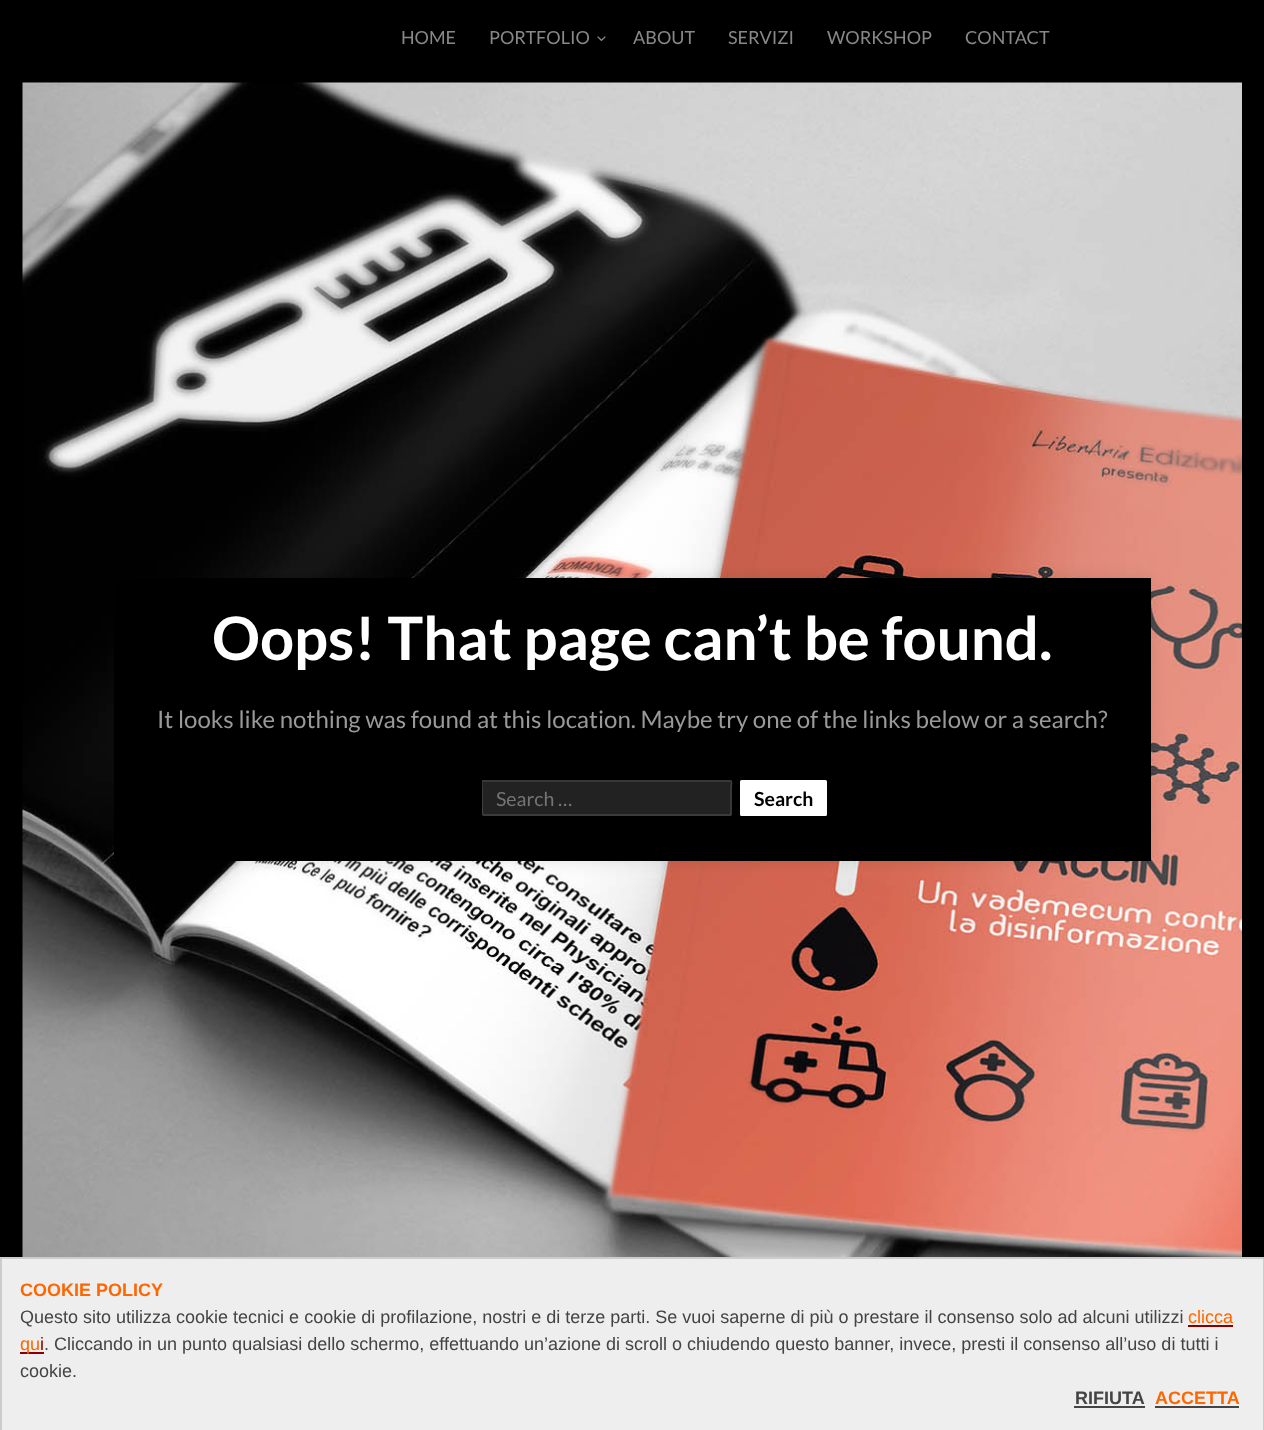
<?xml version="1.0" encoding="UTF-8"?>
<svg xmlns="http://www.w3.org/2000/svg" width="1264" height="1430">
    <defs>
        <filter id="blur1" x="-50%" y="-200%" width="200%" height="500%"><feGaussianBlur stdDeviation="7.5"/></filter>
        <clipPath id="clip1"><rect x="482" y="780" width="345" height="36"/></clipPath>
    </defs>
    <rect width="100%" height="100%" fill="#000000"/>
    <text x="401" y="44" font-family="Lato" font-size="18" fill="#888888">HOME</text>
    <text x="489" y="44" font-family="Lato" font-size="18" fill="#888888">PORTFOLIO</text>
    <image x="597" y="36" width="9" height="5" href="img_01.png"/>
    <text x="633" y="44" font-family="Lato" font-size="18" fill="#888888">ABOUT</text>
    <text x="728" y="44" font-family="Lato" font-size="18" fill="#888888">SERVIZI</text>
    <text x="827" y="44" font-family="Lato" font-size="18" fill="#888888">WORKSHOP</text>
    <text x="965" y="44" font-family="Lato" font-size="18" fill="#888888">CONTACT</text>
    <image x="22" y="82" width="1220" height="1175" href="img_02.png"/>
    <rect x="114" y="578" width="1037" height="283" fill="#000000" fill-opacity="0.1" filter="url(#blur1)"/>
    <rect x="114" y="578" width="1037" height="283" fill="#000000"/>
    <text x="212" y="660" font-family="Lato" font-size="60" font-weight="700" fill="#FFFFFF">Oops! That page can’t be found.</text>
    <text x="157" y="728" font-family="Lato" font-size="24" fill="#999999">It looks like nothing was found at this location. Maybe try one of the links below or a search?</text>
    <rect x="482" y="780" width="250" height="36" rx="1.5" fill="#222222"/>
    <rect x="483" y="814" width="248" height="2" fill="#3B3B3B"/>
    <g clip-path="url(#clip1)">
        <path d="M 482.5 815 L 482 787 C 482 786 481 781 483 781 H 730.5 C 732.5 781 731 786 731 787 V 815" fill="none" stroke="#404040" stroke-width="1.5"/>
    </g>
    <text x="496" y="806" font-family="Lato" font-size="19.5" fill="#757575">Search …</text>
    <rect x="741" y="781" width="85" height="34" rx="0.5" fill="#FFFFFF" stroke="#FFFFFF" stroke-width="2"/>
    <text x="754" y="806" font-family="Lato" font-size="19.5" font-weight="700" fill="#000000">Search</text>
    <rect x="1" y="1258" width="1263" height="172" fill="none" stroke="#CCCCCC" stroke-width="2"/>
    <rect x="2" y="1259" width="1261" height="171" fill="#EEEEEE"/>
    <text x="20" y="1296" font-family="Liberation Sans" font-size="18" font-weight="700" fill="#FF6600">COOKIE POLICY</text>
    <text x="20" y="1323" font-family="Liberation Sans" font-size="18" fill="#444444">Questo sito utilizza cookie tecnici e cookie di profilazione, nostri e di terze parti. Se vuoi saperne di più o prestare il consenso solo ad alcuni utilizzi</text>
    <text x="1188" y="1323" font-family="Liberation Sans" font-size="18" fill="#FF6600">clicca</text>
    <rect x="1188" y="1325" width="45" height="2" fill="#880000"/>
    <rect x="20" y="1352" width="24" height="2" fill="#880000"/>
    <text x="20" y="1350" font-family="Liberation Sans" font-size="18" fill="#FF6600">qu</text>
    <text x="40" y="1350" font-family="Liberation Sans" font-size="18" fill="#880000">i</text>
    <text x="44" y="1350" font-family="Liberation Sans" font-size="18" fill="#444444">. Cliccando in un punto qualsiasi dello schermo, effettuando un’azione di scroll o chiudendo questo banner, invece, presti il consenso all’uso di tutti i</text>
    <text x="20" y="1377" font-family="Liberation Sans" font-size="18" fill="#444444">cookie.</text>
    <text x="1075" y="1404" font-family="Liberation Sans" font-size="18" font-weight="700" fill="#444444">RIFIUTA</text>
    <rect x="1074" y="1406" width="71" height="2" fill="#444444"/>
    <text x="1155" y="1404" font-family="Liberation Sans" font-size="18" font-weight="700" fill="#FF6600">ACCETTA</text>
    <rect x="1155" y="1406" width="84" height="2" fill="#444444"/>
</svg>
